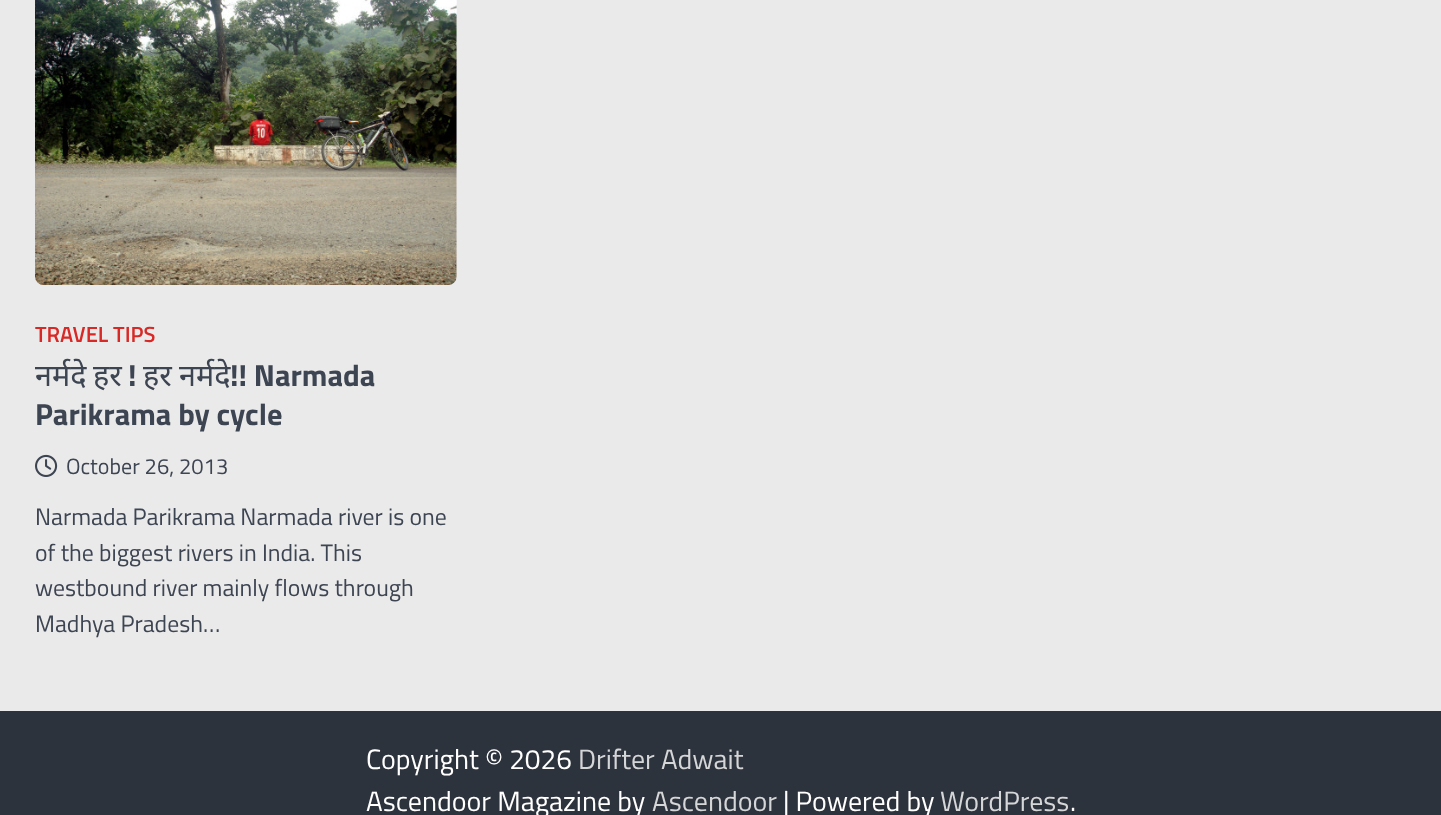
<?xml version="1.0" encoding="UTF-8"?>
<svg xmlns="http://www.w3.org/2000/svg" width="1441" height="815">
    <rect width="100%" height="100%" fill="#EAEAEA"/>
    <rect x="35" y="-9" width="422" height="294" rx="9" fill="#F0F2F7"/>
    <image x="35" y="0" width="422" height="285" href="img_01.png"/>
    <text x="35" y="342" font-family="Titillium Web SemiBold" font-size="22" font-weight="600" fill="#D82926">TRAVEL TIPS</text>
    <text x="35" y="386" font-family="Noto Sans" font-size="30.5" fill="#3D4452">नर्मदे</text>
    <text x="93" y="386" font-family="Noto Sans" font-size="30.5" fill="#3D4452">हर</text>
    <text x="128" y="386" font-family="Titillium Web" font-size="30.5" font-weight="700" fill="#3D4452">!</text>
    <text x="143" y="386" font-family="Noto Sans" font-size="30.5" fill="#3D4452">हर</text>
    <text x="179" y="386" font-family="Noto Sans" font-size="30.5" fill="#3D4452">नर्मदे</text>
    <text x="230" y="386" font-family="Titillium Web" font-size="30.5" font-weight="700" fill="#3D4452">!! Narmada</text>
    <text x="35" y="425" font-family="Titillium Web" font-size="30.5" font-weight="700" fill="#3D4452">Parikrama by cycle</text>
    <image x="35" y="454" width="23" height="23" href="img_02.png"/>
    <text x="66" y="474" font-family="Titillium Web" font-size="22" fill="#3D4452">October 26, 2013</text>
    <text font-family="Titillium Web" font-size="23.75" fill="#3D4452">
        <tspan x="35" y="525">Narmada Parikrama Narmada river is one</tspan>
        <tspan x="35" y="561">of the biggest rivers in India. This</tspan>
        <tspan x="35" y="596">westbound river mainly flows through</tspan>
        <tspan x="35" y="632">Madhya Pradesh…</tspan>
    </text>
    <rect x="0" y="711" width="1441" height="104" fill="#2D333C"/>
    <text x="366" y="769" font-family="Titillium Web" font-size="28" fill="#FFFFFF">Copyright © 2026</text>
    <text x="578" y="769" font-family="Titillium Web" font-size="28" fill="#D5D6D8">Drifter Adwait</text>
    <text x="366" y="811" font-family="Titillium Web" font-size="28" fill="#FFFFFF">Ascendoor Magazine by</text>
    <text x="652" y="811" font-family="Titillium Web" font-size="28" fill="#D5D6D8">Ascendoor</text>
    <text x="783" y="811" font-family="Titillium Web" font-size="28" fill="#FFFFFF">| Powered by</text>
    <text x="940" y="811" font-family="Titillium Web" font-size="28" fill="#D5D6D8">WordPress</text>
    <text x="1070" y="811" font-family="Titillium Web" font-size="28" fill="#FFFFFF">.</text>
</svg>
